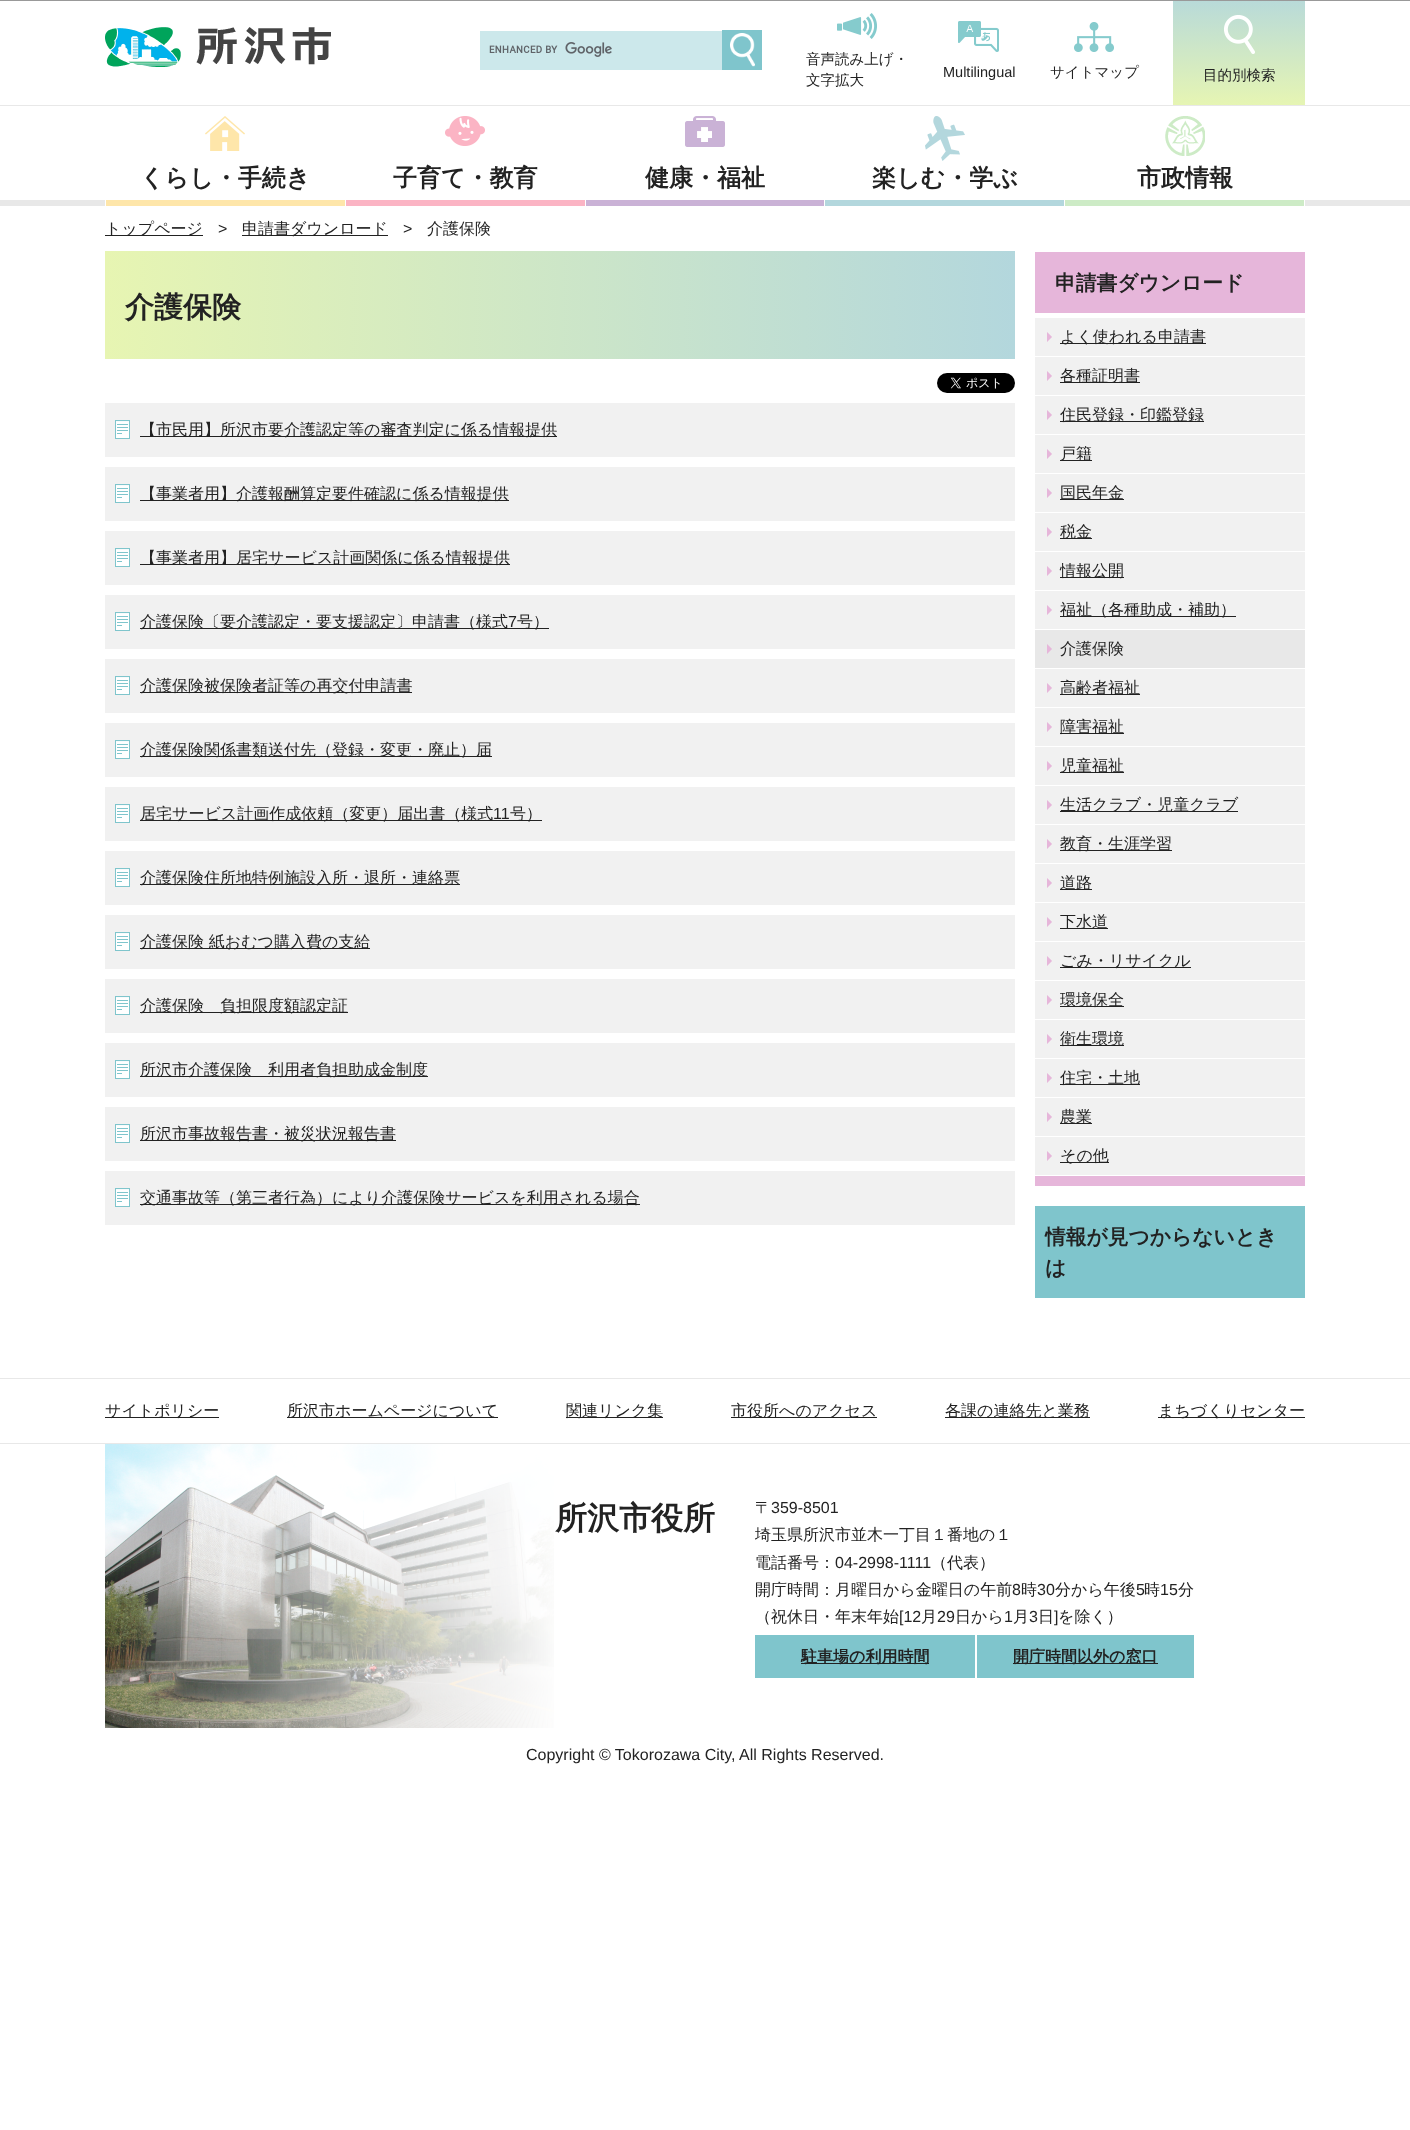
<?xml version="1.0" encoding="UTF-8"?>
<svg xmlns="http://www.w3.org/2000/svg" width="1410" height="2130">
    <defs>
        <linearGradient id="g1" gradientUnits="userSpaceOnUse" x1="1239" y1="0" x2="1239" y2="105"><stop offset="0" stop-color="#B8DAD9"/><stop offset="1" stop-color="#E6F5B3"/></linearGradient>
        <linearGradient id="g2" gradientUnits="userSpaceOnUse" x1="105" y1="305" x2="1015" y2="305"><stop offset="0" stop-color="#E7F5B2"/><stop offset="1" stop-color="#B3D7DD"/></linearGradient>
    </defs>
    <rect width="100%" height="100%" fill="#FFFFFF"/>
    <rect x="0" y="0" width="1410" height="1" fill="#999999"/>
    <rect x="0" y="105" width="1410" height="1" fill="#E8E8E8"/>
    <image x="105" y="27" width="226" height="40" href="img_01.png"/>
    <rect x="480" y="31" width="242" height="39" fill="#CCE8EB"/>
    <image x="489" y="42" width="123" height="15" href="img_02.png"/>
    <rect x="722" y="30" width="40" height="40" fill="#7FC5CC"/>
    <image x="730" y="33" width="25" height="34" href="img_03.png"/>
    <image x="837" y="13" width="40" height="26" href="img_04.png"/>
    <text font-family="WenQuanYi Zen Hei" font-size="14.5" font-weight="500" fill="#222222">
        <tspan x="806" y="64">音声読み上げ・</tspan>
        <tspan x="806" y="85">文字拡大</tspan>
    </text>
    <image x="958" y="21" width="41" height="31" href="img_05.png"/>
    <text x="943" y="77" font-family="Liberation Sans" font-size="14.5" fill="#222222">Multilingual</text>
    <image x="1074" y="22" width="40" height="30" href="img_06.png"/>
    <text x="1050" y="77" font-family="WenQuanYi Zen Hei" font-size="14.5" font-weight="500" fill="#222222">サイトマップ</text>
    <rect x="1173" y="1" width="132" height="104" fill="url(#g1)"/>
    <image x="1224" y="15" width="31" height="39" href="img_07.png"/>
    <text x="1203" y="80" font-family="WenQuanYi Zen Hei" font-size="14.5" font-weight="500" fill="#222222">目的別検索</text>
    <rect x="0" y="200" width="1410" height="6" fill="#E8E8E8"/>
    <rect x="345" y="200" width="1" height="6" fill="#FFFFFF"/>
    <rect x="105" y="200" width="1" height="6" fill="#FFFFFF"/>
    <image x="205" y="116" width="40" height="35" href="img_08.png"/>
    <rect x="106" y="200" width="239" height="6" fill="#FEE6AA"/>
    <text x="140" y="186" font-family="WenQuanYi Zen Hei" font-size="24" font-weight="700" fill="#222222">くらし・手続き</text>
    <rect x="585" y="200" width="1" height="6" fill="#FFFFFF"/>
    <image x="445" y="116" width="40" height="30" href="img_09.png"/>
    <rect x="346" y="200" width="239" height="6" fill="#FBB4C4"/>
    <text x="393" y="186" font-family="WenQuanYi Zen Hei" font-size="24" font-weight="700" fill="#222222">子育て・教育</text>
    <rect x="824" y="200" width="1" height="6" fill="#FFFFFF"/>
    <image x="685" y="116" width="40" height="31" href="img_10.png"/>
    <rect x="586" y="200" width="238" height="6" fill="#CAB2D6"/>
    <text x="645" y="186" font-family="WenQuanYi Zen Hei" font-size="24" font-weight="700" fill="#222222">健康・福祉</text>
    <rect x="1064" y="200" width="1" height="6" fill="#FFFFFF"/>
    <image x="925" y="116" width="40" height="45" href="img_11.png"/>
    <rect x="825" y="200" width="239" height="6" fill="#B3D7DD"/>
    <text x="872" y="186" font-family="WenQuanYi Zen Hei" font-size="24" font-weight="700" fill="#222222">楽しむ・学ぶ</text>
    <rect x="1304" y="200" width="1" height="6" fill="#FFFFFF"/>
    <image x="1165" y="116" width="40" height="40" href="img_12.png"/>
    <rect x="1065" y="200" width="239" height="6" fill="#CDEBC6"/>
    <text x="1137" y="186" font-family="WenQuanYi Zen Hei" font-size="24" font-weight="700" fill="#222222">市政情報</text>
    <rect x="105" y="235" width="98" height="1" fill="#222222"/>
    <text x="105" y="234" font-family="WenQuanYi Zen Hei" font-size="16" font-weight="500" fill="#222222">トップページ</text>
    <text x="218" y="234" font-family="Liberation Sans" font-size="16" fill="#222222">&gt;</text>
    <rect x="242" y="235" width="146" height="1" fill="#222222"/>
    <text x="242" y="234" font-family="WenQuanYi Zen Hei" font-size="16" font-weight="500" fill="#222222">申請書ダウンロード</text>
    <text x="403" y="234" font-family="Liberation Sans" font-size="16" fill="#222222">&gt;</text>
    <text x="427" y="234" font-family="WenQuanYi Zen Hei" font-size="16" font-weight="500" fill="#222222">介護保険</text>
    <rect x="105" y="251" width="910" height="108" fill="url(#g2)"/>
    <text x="125" y="317" font-family="WenQuanYi Zen Hei" font-size="29" font-weight="700" fill="#222222">介護保険</text>
    <image x="937" y="373" width="78" height="20" href="img_13.png"/>
    <rect x="105" y="403" width="910" height="54" fill="#F1F1F1"/>
    <image x="115" y="420" width="15" height="19" href="img_14.png"/>
    <rect x="140" y="436" width="417" height="1" fill="#222222"/>
    <text x="140" y="435" font-family="WenQuanYi Zen Hei" font-size="16" font-weight="500" fill="#222222">【市民用】所沢市要介護認定等の審査判定に係る情報提供</text>
    <rect x="105" y="467" width="910" height="54" fill="#F1F1F1"/>
    <image x="115" y="484" width="15" height="19" href="img_14.png"/>
    <rect x="140" y="500" width="369" height="1" fill="#222222"/>
    <text x="140" y="499" font-family="WenQuanYi Zen Hei" font-size="16" font-weight="500" fill="#222222">【事業者用】介護報酬算定要件確認に係る情報提供</text>
    <rect x="105" y="531" width="910" height="54" fill="#F1F1F1"/>
    <image x="115" y="548" width="15" height="19" href="img_14.png"/>
    <rect x="140" y="564" width="370" height="1" fill="#222222"/>
    <text x="140" y="563" font-family="WenQuanYi Zen Hei" font-size="16" font-weight="500" fill="#222222">【事業者用】居宅サービス計画関係に係る情報提供</text>
    <rect x="105" y="595" width="910" height="54" fill="#F1F1F1"/>
    <image x="115" y="612" width="15" height="19" href="img_14.png"/>
    <rect x="140" y="628" width="409" height="1" fill="#222222"/>
    <text x="140" y="627" font-family="WenQuanYi Zen Hei" font-size="16" font-weight="500" fill="#222222">介護保険〔要介護認定・要支援認定〕申請書（様式</text>
    <text x="508" y="627" font-family="Liberation Sans" font-size="16" fill="#222222">7</text>
    <text x="517" y="627" font-family="WenQuanYi Zen Hei" font-size="16" font-weight="500" fill="#222222">号）</text>
    <rect x="105" y="659" width="910" height="54" fill="#F1F1F1"/>
    <image x="115" y="676" width="15" height="19" href="img_14.png"/>
    <rect x="140" y="692" width="272" height="1" fill="#222222"/>
    <text x="140" y="691" font-family="WenQuanYi Zen Hei" font-size="16" font-weight="500" fill="#222222">介護保険被保険者証等の再交付申請書</text>
    <rect x="105" y="723" width="910" height="54" fill="#F1F1F1"/>
    <image x="115" y="740" width="15" height="19" href="img_14.png"/>
    <rect x="140" y="756" width="352" height="1" fill="#222222"/>
    <text x="140" y="755" font-family="WenQuanYi Zen Hei" font-size="16" font-weight="500" fill="#222222">介護保険関係書類送付先（登録・変更・廃止）届</text>
    <rect x="105" y="787" width="910" height="54" fill="#F1F1F1"/>
    <image x="115" y="804" width="15" height="19" href="img_14.png"/>
    <rect x="140" y="820" width="402" height="1" fill="#222222"/>
    <text x="140" y="819" font-family="WenQuanYi Zen Hei" font-size="16" font-weight="500" fill="#222222">居宅サービス計画作成依頼（変更）届出書（様式</text>
    <text x="493" y="819" font-family="Liberation Sans" font-size="16" fill="#222222">11</text>
    <text x="510" y="819" font-family="WenQuanYi Zen Hei" font-size="16" font-weight="500" fill="#222222">号）</text>
    <rect x="105" y="851" width="910" height="54" fill="#F1F1F1"/>
    <image x="115" y="868" width="15" height="19" href="img_14.png"/>
    <rect x="140" y="884" width="320" height="1" fill="#222222"/>
    <text x="140" y="883" font-family="WenQuanYi Zen Hei" font-size="16" font-weight="500" fill="#222222">介護保険住所地特例施設入所・退所・連絡票</text>
    <rect x="105" y="915" width="910" height="54" fill="#F1F1F1"/>
    <image x="115" y="932" width="15" height="19" href="img_14.png"/>
    <rect x="140" y="948" width="230" height="1" fill="#222222"/>
    <text x="140" y="947" font-family="WenQuanYi Zen Hei" font-size="16" font-weight="500" fill="#222222">介護保険 紙おむつ購入費の支給</text>
    <rect x="105" y="979" width="910" height="54" fill="#F1F1F1"/>
    <image x="115" y="996" width="15" height="19" href="img_14.png"/>
    <rect x="140" y="1012" width="208" height="1" fill="#222222"/>
    <text x="140" y="1011" font-family="WenQuanYi Zen Hei" font-size="16" font-weight="500" fill="#222222">介護保険　負担限度額認定証</text>
    <rect x="105" y="1043" width="910" height="54" fill="#F1F1F1"/>
    <image x="115" y="1060" width="15" height="19" href="img_14.png"/>
    <rect x="140" y="1076" width="288" height="1" fill="#222222"/>
    <text x="140" y="1075" font-family="WenQuanYi Zen Hei" font-size="16" font-weight="500" fill="#222222">所沢市介護保険　利用者負担助成金制度</text>
    <rect x="105" y="1107" width="910" height="54" fill="#F1F1F1"/>
    <image x="115" y="1124" width="15" height="19" href="img_14.png"/>
    <rect x="140" y="1140" width="256" height="1" fill="#222222"/>
    <text x="140" y="1139" font-family="WenQuanYi Zen Hei" font-size="16" font-weight="500" fill="#222222">所沢市事故報告書・被災状況報告書</text>
    <rect x="105" y="1171" width="910" height="54" fill="#F1F1F1"/>
    <image x="115" y="1188" width="15" height="19" href="img_14.png"/>
    <rect x="140" y="1204" width="500" height="1" fill="#222222"/>
    <text x="140" y="1203" font-family="WenQuanYi Zen Hei" font-size="16" font-weight="500" fill="#222222">交通事故等（第三者行為）により介護保険サービスを利用される場合</text>
    <rect x="1035" y="252" width="270" height="61" fill="#E6B6DA"/>
    <text x="1055" y="290" font-family="WenQuanYi Zen Hei" font-size="20.75" font-weight="700" fill="#222222">申請書ダウンロード</text>
    <rect x="1035" y="318" width="270" height="38" fill="#F1F1F1"/>
    <image x="1047" y="332" width="5" height="10" href="img_15.png"/>
    <rect x="1060" y="343" width="146" height="1" fill="#222222"/>
    <text x="1060" y="342" font-family="WenQuanYi Zen Hei" font-size="16" font-weight="500" fill="#222222">よく使われる申請書</text>
    <rect x="1035" y="357" width="270" height="38" fill="#F1F1F1"/>
    <image x="1047" y="371" width="5" height="10" href="img_15.png"/>
    <rect x="1060" y="382" width="80" height="1" fill="#222222"/>
    <text x="1060" y="381" font-family="WenQuanYi Zen Hei" font-size="16" font-weight="500" fill="#222222">各種証明書</text>
    <rect x="1035" y="396" width="270" height="38" fill="#F1F1F1"/>
    <image x="1047" y="410" width="5" height="10" href="img_15.png"/>
    <rect x="1060" y="421" width="144" height="1" fill="#222222"/>
    <text x="1060" y="420" font-family="WenQuanYi Zen Hei" font-size="16" font-weight="500" fill="#222222">住民登録・印鑑登録</text>
    <rect x="1035" y="435" width="270" height="38" fill="#F1F1F1"/>
    <image x="1047" y="449" width="5" height="10" href="img_15.png"/>
    <rect x="1060" y="460" width="32" height="1" fill="#222222"/>
    <text x="1060" y="459" font-family="WenQuanYi Zen Hei" font-size="16" font-weight="500" fill="#222222">戸籍</text>
    <rect x="1035" y="474" width="270" height="38" fill="#F1F1F1"/>
    <image x="1047" y="488" width="5" height="10" href="img_15.png"/>
    <rect x="1060" y="499" width="64" height="1" fill="#222222"/>
    <text x="1060" y="498" font-family="WenQuanYi Zen Hei" font-size="16" font-weight="500" fill="#222222">国民年金</text>
    <rect x="1035" y="513" width="270" height="38" fill="#F1F1F1"/>
    <image x="1047" y="527" width="5" height="10" href="img_15.png"/>
    <rect x="1060" y="538" width="32" height="1" fill="#222222"/>
    <text x="1060" y="537" font-family="WenQuanYi Zen Hei" font-size="16" font-weight="500" fill="#222222">税金</text>
    <rect x="1035" y="552" width="270" height="38" fill="#F1F1F1"/>
    <image x="1047" y="566" width="5" height="10" href="img_15.png"/>
    <rect x="1060" y="577" width="64" height="1" fill="#222222"/>
    <text x="1060" y="576" font-family="WenQuanYi Zen Hei" font-size="16" font-weight="500" fill="#222222">情報公開</text>
    <rect x="1035" y="591" width="270" height="38" fill="#F1F1F1"/>
    <image x="1047" y="605" width="5" height="10" href="img_15.png"/>
    <rect x="1060" y="616" width="176" height="1" fill="#222222"/>
    <text x="1060" y="615" font-family="WenQuanYi Zen Hei" font-size="16" font-weight="500" fill="#222222">福祉（各種助成・補助）</text>
    <rect x="1035" y="630" width="270" height="38" fill="#E8E8E8"/>
    <image x="1047" y="644" width="5" height="10" href="img_16.png"/>
    <text x="1060" y="654" font-family="WenQuanYi Zen Hei" font-size="16" font-weight="500" fill="#222222">介護保険</text>
    <rect x="1035" y="669" width="270" height="38" fill="#F1F1F1"/>
    <image x="1047" y="683" width="5" height="10" href="img_15.png"/>
    <rect x="1060" y="694" width="80" height="1" fill="#222222"/>
    <text x="1060" y="693" font-family="WenQuanYi Zen Hei" font-size="16" font-weight="500" fill="#222222">高齢者福祉</text>
    <rect x="1035" y="708" width="270" height="38" fill="#F1F1F1"/>
    <image x="1047" y="722" width="5" height="10" href="img_15.png"/>
    <rect x="1060" y="733" width="64" height="1" fill="#222222"/>
    <text x="1060" y="732" font-family="WenQuanYi Zen Hei" font-size="16" font-weight="500" fill="#222222">障害福祉</text>
    <rect x="1035" y="747" width="270" height="38" fill="#F1F1F1"/>
    <image x="1047" y="761" width="5" height="10" href="img_15.png"/>
    <rect x="1060" y="772" width="64" height="1" fill="#222222"/>
    <text x="1060" y="771" font-family="WenQuanYi Zen Hei" font-size="16" font-weight="500" fill="#222222">児童福祉</text>
    <rect x="1035" y="786" width="270" height="38" fill="#F1F1F1"/>
    <image x="1047" y="800" width="5" height="10" href="img_15.png"/>
    <rect x="1060" y="811" width="178" height="1" fill="#222222"/>
    <text x="1060" y="810" font-family="WenQuanYi Zen Hei" font-size="16" font-weight="500" fill="#222222">生活クラブ・児童クラブ</text>
    <rect x="1035" y="825" width="270" height="38" fill="#F1F1F1"/>
    <image x="1047" y="839" width="5" height="10" href="img_15.png"/>
    <rect x="1060" y="850" width="112" height="1" fill="#222222"/>
    <text x="1060" y="849" font-family="WenQuanYi Zen Hei" font-size="16" font-weight="500" fill="#222222">教育・生涯学習</text>
    <rect x="1035" y="864" width="270" height="38" fill="#F1F1F1"/>
    <image x="1047" y="878" width="5" height="10" href="img_15.png"/>
    <rect x="1060" y="889" width="32" height="1" fill="#222222"/>
    <text x="1060" y="888" font-family="WenQuanYi Zen Hei" font-size="16" font-weight="500" fill="#222222">道路</text>
    <rect x="1035" y="903" width="270" height="38" fill="#F1F1F1"/>
    <image x="1047" y="917" width="5" height="10" href="img_15.png"/>
    <rect x="1060" y="928" width="48" height="1" fill="#222222"/>
    <text x="1060" y="927" font-family="WenQuanYi Zen Hei" font-size="16" font-weight="500" fill="#222222">下水道</text>
    <rect x="1035" y="942" width="270" height="38" fill="#F1F1F1"/>
    <image x="1047" y="956" width="5" height="10" href="img_15.png"/>
    <rect x="1060" y="967" width="131" height="1" fill="#222222"/>
    <text x="1060" y="966" font-family="WenQuanYi Zen Hei" font-size="16" font-weight="500" fill="#222222">ごみ・リサイクル</text>
    <rect x="1035" y="981" width="270" height="38" fill="#F1F1F1"/>
    <image x="1047" y="995" width="5" height="10" href="img_15.png"/>
    <rect x="1060" y="1006" width="64" height="1" fill="#222222"/>
    <text x="1060" y="1005" font-family="WenQuanYi Zen Hei" font-size="16" font-weight="500" fill="#222222">環境保全</text>
    <rect x="1035" y="1020" width="270" height="38" fill="#F1F1F1"/>
    <image x="1047" y="1034" width="5" height="10" href="img_15.png"/>
    <rect x="1060" y="1045" width="64" height="1" fill="#222222"/>
    <text x="1060" y="1044" font-family="WenQuanYi Zen Hei" font-size="16" font-weight="500" fill="#222222">衛生環境</text>
    <rect x="1035" y="1059" width="270" height="38" fill="#F1F1F1"/>
    <image x="1047" y="1073" width="5" height="10" href="img_15.png"/>
    <rect x="1060" y="1084" width="80" height="1" fill="#222222"/>
    <text x="1060" y="1083" font-family="WenQuanYi Zen Hei" font-size="16" font-weight="500" fill="#222222">住宅・土地</text>
    <rect x="1035" y="1098" width="270" height="38" fill="#F1F1F1"/>
    <image x="1047" y="1112" width="5" height="10" href="img_15.png"/>
    <rect x="1060" y="1123" width="32" height="1" fill="#222222"/>
    <text x="1060" y="1122" font-family="WenQuanYi Zen Hei" font-size="16" font-weight="500" fill="#222222">農業</text>
    <rect x="1035" y="1176" width="270" height="10" fill="#E6B6DA"/>
    <rect x="1035" y="1137" width="270" height="38" fill="#F1F1F1"/>
    <image x="1047" y="1151" width="5" height="10" href="img_15.png"/>
    <rect x="1060" y="1162" width="49" height="1" fill="#222222"/>
    <text x="1060" y="1161" font-family="WenQuanYi Zen Hei" font-size="16" font-weight="500" fill="#222222">その他</text>
    <rect x="1035" y="1206" width="270" height="92" fill="#7FC5CC"/>
    <text font-family="WenQuanYi Zen Hei" font-size="20.75" font-weight="700" fill="#222222">
        <tspan x="1045" y="1244">情報が見つからないとき</tspan>
        <tspan x="1045" y="1275">は</tspan>
    </text>
    <rect x="0" y="1378" width="1410" height="1" fill="#E8E8E8"/>
    <rect x="0" y="1443" width="1410" height="1" fill="#E8E8E8"/>
    <rect x="105" y="1417" width="114" height="1" fill="#222222"/>
    <text x="105" y="1416" font-family="WenQuanYi Zen Hei" font-size="16" font-weight="500" fill="#222222">サイトポリシー</text>
    <rect x="287" y="1417" width="211" height="1" fill="#222222"/>
    <text x="287" y="1416" font-family="WenQuanYi Zen Hei" font-size="16" font-weight="500" fill="#222222">所沢市ホームページについて</text>
    <rect x="566" y="1417" width="97" height="1" fill="#222222"/>
    <text x="566" y="1416" font-family="WenQuanYi Zen Hei" font-size="16" font-weight="500" fill="#222222">関連リンク集</text>
    <rect x="731" y="1417" width="146" height="1" fill="#222222"/>
    <text x="731" y="1416" font-family="WenQuanYi Zen Hei" font-size="16" font-weight="500" fill="#222222">市役所へのアクセス</text>
    <rect x="945" y="1417" width="145" height="1" fill="#222222"/>
    <text x="945" y="1416" font-family="WenQuanYi Zen Hei" font-size="16" font-weight="500" fill="#222222">各課の連絡先と業務</text>
    <rect x="1158" y="1417" width="147" height="1" fill="#222222"/>
    <text x="1158" y="1416" font-family="WenQuanYi Zen Hei" font-size="16" font-weight="500" fill="#222222">まちづくりセンター</text>
    <image x="105" y="1444" width="449" height="284" href="img_17.png"/>
    <text x="555" y="1529" font-family="WenQuanYi Zen Hei" font-size="32" font-weight="700" fill="#222222">所沢市役所</text>
    <text x="755" y="1513" font-family="WenQuanYi Zen Hei" font-size="16" font-weight="500" fill="#222222">〒</text>
    <text x="771" y="1513" font-family="Liberation Sans" font-size="16" fill="#222222">359-8501</text>
    <text font-family="WenQuanYi Zen Hei" font-size="16" font-weight="500" fill="#222222">
        <tspan x="755" y="1540">埼玉県所沢市並木一丁目１番地の１</tspan>
        <tspan x="755" y="1568">電話番号：</tspan>
    </text>
    <text x="835" y="1568" font-family="Liberation Sans" font-size="16" fill="#222222">04-2998-1111</text>
    <text x="931" y="1568" font-family="WenQuanYi Zen Hei" font-size="16" font-weight="500" fill="#222222">（代表）</text>
    <text x="755" y="1595" font-family="WenQuanYi Zen Hei" font-size="16" font-weight="500" fill="#222222">開庁時間：月曜日から金曜日の午前</text>
    <text x="1012" y="1595" font-family="Liberation Sans" font-size="16" fill="#222222">8</text>
    <text x="1021" y="1595" font-family="WenQuanYi Zen Hei" font-size="16" font-weight="500" fill="#222222">時</text>
    <text x="1037" y="1595" font-family="Liberation Sans" font-size="16" fill="#222222">30</text>
    <text x="1055" y="1595" font-family="WenQuanYi Zen Hei" font-size="16" font-weight="500" fill="#222222">分から午後</text>
    <text x="1136" y="1595" font-family="Liberation Sans" font-size="16" fill="#222222">5</text>
    <text x="1144" y="1595" font-family="WenQuanYi Zen Hei" font-size="16" font-weight="500" fill="#222222">時</text>
    <text x="1160" y="1595" font-family="Liberation Sans" font-size="16" fill="#222222">15</text>
    <text x="1178" y="1595" font-family="WenQuanYi Zen Hei" font-size="16" font-weight="500" fill="#222222">分</text>
    <text x="755" y="1622" font-family="WenQuanYi Zen Hei" font-size="16" font-weight="500" fill="#222222">（祝休日・年末年始</text>
    <text x="899" y="1622" font-family="Liberation Sans" font-size="16" fill="#222222">[12</text>
    <text x="921" y="1622" font-family="WenQuanYi Zen Hei" font-size="16" font-weight="500" fill="#222222">月</text>
    <text x="937" y="1622" font-family="Liberation Sans" font-size="16" fill="#222222">29</text>
    <text x="955" y="1622" font-family="WenQuanYi Zen Hei" font-size="16" font-weight="500" fill="#222222">日から</text>
    <text x="1004" y="1622" font-family="Liberation Sans" font-size="16" fill="#222222">1</text>
    <text x="1013" y="1622" font-family="WenQuanYi Zen Hei" font-size="16" font-weight="500" fill="#222222">月</text>
    <text x="1029" y="1622" font-family="Liberation Sans" font-size="16" fill="#222222">3</text>
    <text x="1038" y="1622" font-family="WenQuanYi Zen Hei" font-size="16" font-weight="500" fill="#222222">日</text>
    <text x="1054" y="1622" font-family="Liberation Sans" font-size="16" fill="#222222">]</text>
    <text x="1058" y="1622" font-family="WenQuanYi Zen Hei" font-size="16" font-weight="500" fill="#222222">を除く）</text>
    <rect x="755" y="1635" width="220" height="43" fill="#7FC5CC"/>
    <rect x="801" y="1663" width="128" height="1" fill="#222222"/>
    <text x="801" y="1662" font-family="WenQuanYi Zen Hei" font-size="16" font-weight="700" fill="#222222">駐車場の利用時間</text>
    <rect x="977" y="1635" width="217" height="43" fill="#7FC5CC"/>
    <rect x="1013" y="1663" width="145" height="1" fill="#222222"/>
    <text x="1013" y="1662" font-family="WenQuanYi Zen Hei" font-size="16" font-weight="700" fill="#222222">開庁時間以外の窓口</text>
    <text x="526" y="1760" font-family="Liberation Sans" font-size="16" fill="#222222">Copyright © Tokorozawa City, All Rights Reserved.</text>
</svg>
